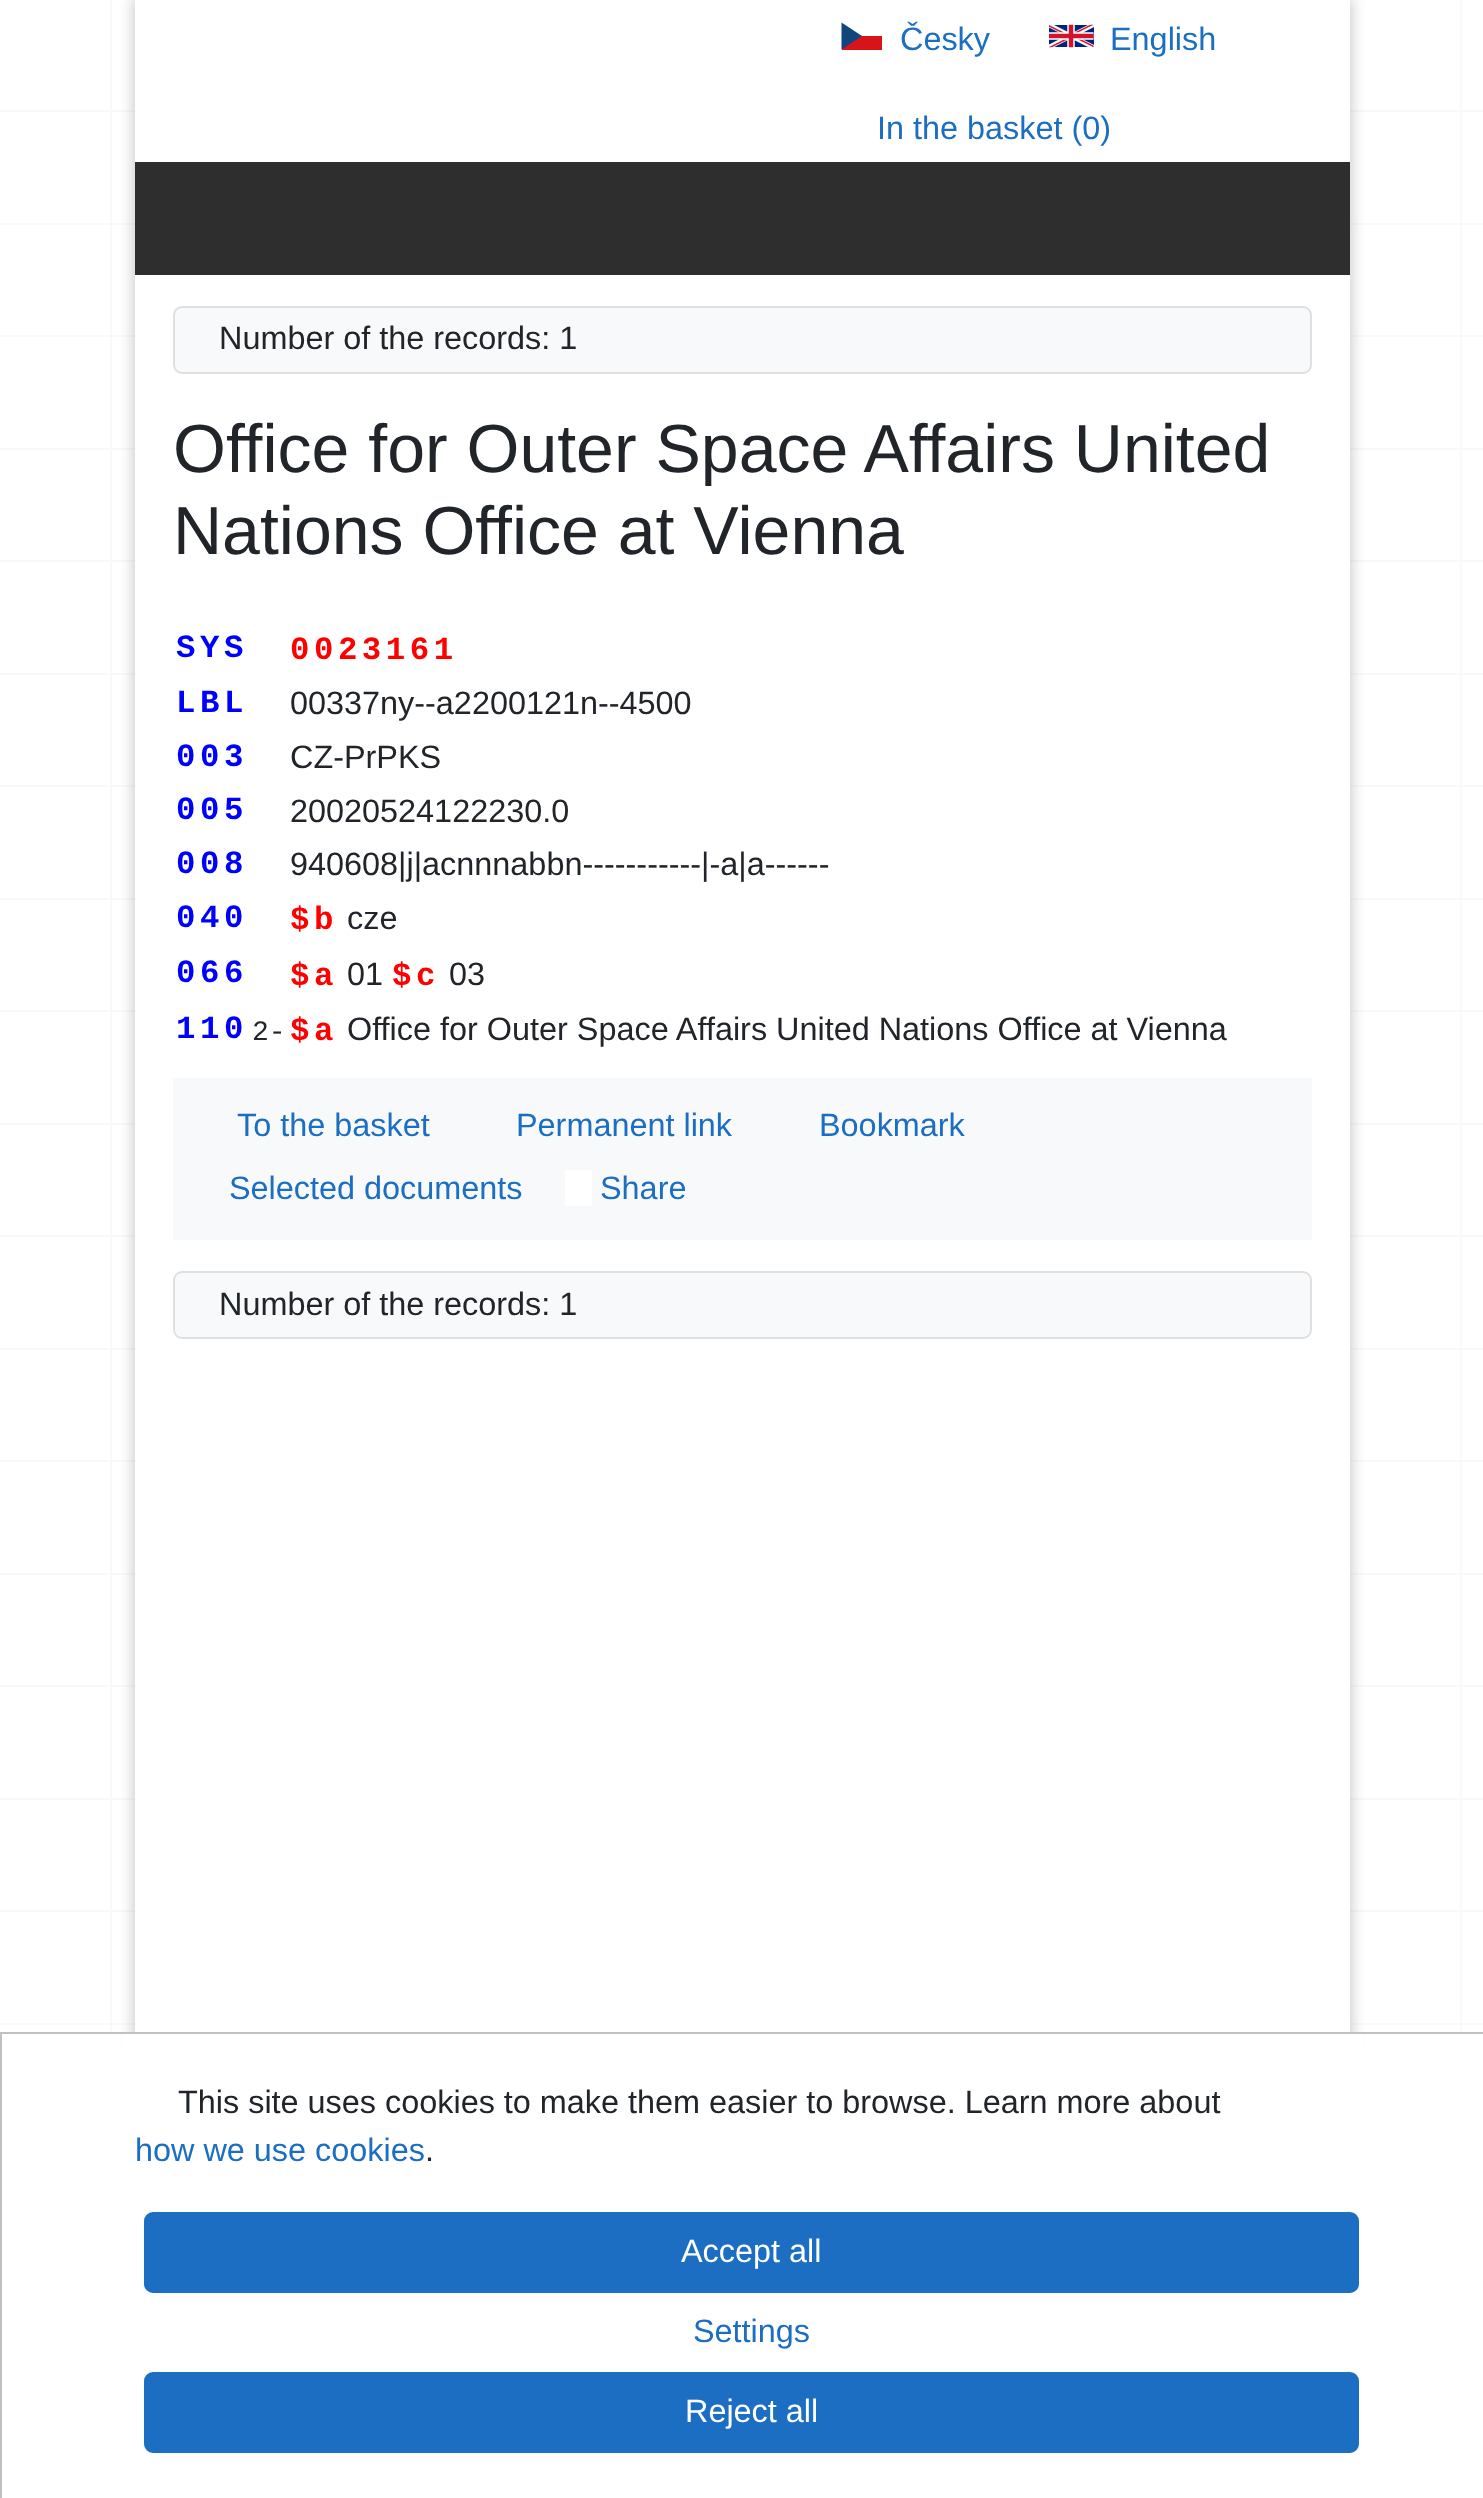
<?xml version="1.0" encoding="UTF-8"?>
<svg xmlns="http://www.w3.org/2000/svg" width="1483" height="2498">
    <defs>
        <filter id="blur1" x="-50%" y="-200%" width="200%" height="500%"><feGaussianBlur stdDeviation="7"/></filter>
    </defs>
    <rect width="100%" height="100%" fill="#FFFFFF"/>
    <rect x="110" y="0" width="2" height="2032" fill="#F8F9FA"/>
    <rect x="1460" y="0" width="2" height="2032" fill="#F8F9FA"/>
    <image x="0" y="110" width="1483" height="1915" href="img_01.png"/>
    <rect x="133" y="-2" width="1219" height="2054" fill="#000000" fill-opacity="0.2" filter="url(#blur1)"/>
    <rect x="135" y="0" width="1215" height="2032" fill="#FFFFFF"/>
    <rect x="842" y="36" width="40" height="14" fill="#D7141A"/>
    <path d="M 862 36 L 841.5 22.5 V 49.5 Z" fill="#11457E"/>
    <text x="900" y="50" font-family="Liberation Sans" font-size="32.4" fill="#1B6EC2">Česky</text>
    <image x="1049" y="24" width="45" height="24" href="img_02.png"/>
    <text x="1110" y="50" font-family="Liberation Sans" font-size="32.4" fill="#1B6EC2">English</text>
    <text x="877" y="139" font-family="Liberation Sans" font-size="32.4" fill="#1B6EC2">In the basket (0)</text>
    <rect x="135" y="162" width="1215" height="113" fill="#2E2E2E"/>
    <rect x="173" y="306" width="1139" height="68" rx="9" fill="#F8F9FA"/>
    <rect x="174" y="307" width="1137" height="66" rx="8" fill="none" stroke="#333333" stroke-opacity="0.12" stroke-width="2"/>
    <text x="219" y="349" font-family="Liberation Sans" font-size="32.4" fill="#212529">Number of the records: 1</text>
    <text font-family="Liberation Sans" font-size="68" fill="#212529">
        <tspan x="173" y="472">Office for Outer Space Affairs United</tspan>
        <tspan x="173" y="554">Nations Office at Vienna</tspan>
    </text>
    <text x="176" y="657" font-family="Liberation Mono" font-size="32.4" font-weight="700" letter-spacing="4.5" fill="#0000FF">SYS</text>
    <text x="290" y="659" font-family="Liberation Mono" font-size="32.4" font-weight="700" letter-spacing="4.5" fill="#FF0000">0023161</text>
    <text x="176" y="712" font-family="Liberation Mono" font-size="32.4" font-weight="700" letter-spacing="4.5" fill="#0000FF">LBL</text>
    <text x="290" y="714" font-family="Liberation Sans" font-size="32.4" fill="#212529">00337ny--a2200121n--4500</text>
    <text x="176" y="766" font-family="Liberation Mono" font-size="32.4" font-weight="700" letter-spacing="4.5" fill="#0000FF">003</text>
    <text x="290" y="768" font-family="Liberation Sans" font-size="32.4" fill="#212529">CZ-PrPKS</text>
    <text x="176" y="819" font-family="Liberation Mono" font-size="32.4" font-weight="700" letter-spacing="4.5" fill="#0000FF">005</text>
    <text x="290" y="822" font-family="Liberation Sans" font-size="32.4" fill="#212529">20020524122230.0</text>
    <text x="176" y="873" font-family="Liberation Mono" font-size="32.4" font-weight="700" letter-spacing="4.5" fill="#0000FF">008</text>
    <text x="290" y="875" font-family="Liberation Sans" font-size="32.4" fill="#212529">940608|j|acnnnabbn-----------|-a|a------</text>
    <text x="176" y="927" font-family="Liberation Mono" font-size="32.4" font-weight="700" letter-spacing="4.5" fill="#0000FF">040</text>
    <text x="290" y="929" font-family="Liberation Mono" font-size="32.4" font-weight="700" letter-spacing="4.5" fill="#FF0000">$b</text>
    <text x="347" y="929" font-family="Liberation Sans" font-size="32.4" fill="#212529">cze</text>
    <text x="176" y="982" font-family="Liberation Mono" font-size="32.4" font-weight="700" letter-spacing="4.5" fill="#0000FF">066</text>
    <text x="290" y="985" font-family="Liberation Mono" font-size="32.4" font-weight="700" letter-spacing="4.5" fill="#FF0000">$a</text>
    <text x="347" y="985" font-family="Liberation Sans" font-size="32.4" fill="#212529">01</text>
    <text x="392" y="985" font-family="Liberation Mono" font-size="32.4" font-weight="700" letter-spacing="4.5" fill="#FF0000">$c</text>
    <text x="449" y="985" font-family="Liberation Sans" font-size="32.4" fill="#212529">03</text>
    <text x="176" y="1038" font-family="Liberation Mono" font-size="32.4" font-weight="700" letter-spacing="4.5" fill="#0000FF">110</text>
    <text x="252" y="1040" font-family="Liberation Mono" font-size="28" fill="#212529">2-</text>
    <text x="290" y="1040" font-family="Liberation Mono" font-size="32.4" font-weight="700" letter-spacing="4.5" fill="#FF0000">$a</text>
    <text x="347" y="1040" font-family="Liberation Sans" font-size="32.4" fill="#212529">Office for Outer Space Affairs United Nations Office at Vienna</text>
    <rect x="173" y="1078" width="1139" height="162" fill="#F8F9FA"/>
    <text x="237" y="1136" font-family="Liberation Sans" font-size="32.4" fill="#1B6EC2">To the basket</text>
    <text x="516" y="1136" font-family="Liberation Sans" font-size="32.4" fill="#1B6EC2">Permanent link</text>
    <text x="819" y="1136" font-family="Liberation Sans" font-size="32.4" fill="#1B6EC2">Bookmark</text>
    <text x="229" y="1199" font-family="Liberation Sans" font-size="32.4" fill="#1B6EC2">Selected documents</text>
    <text x="600" y="1199" font-family="Liberation Sans" font-size="32.4" fill="#1B6EC2">Share</text>
    <rect x="565" y="1170" width="27" height="36" fill="#FFFFFF"/>
    <rect x="173" y="1271" width="1139" height="68" rx="9" fill="#F8F9FA"/>
    <rect x="174" y="1272" width="1137" height="66" rx="8" fill="none" stroke="#333333" stroke-opacity="0.12" stroke-width="2"/>
    <text x="219" y="1315" font-family="Liberation Sans" font-size="32.4" fill="#212529">Number of the records: 1</text>
    <rect x="122" y="2034" width="1241" height="29" fill="#FFFFFF"/>
    <rect x="1" y="2033" width="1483" height="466" fill="none" stroke="#C0C0C0" stroke-width="2"/>
    <text x="178" y="2113" font-family="Liberation Sans" font-size="32.4" fill="#212529">This site uses cookies to make them easier to browse. Learn more about</text>
    <text x="135" y="2161" font-family="Liberation Sans" font-size="32.4" fill="#1B6EC2">how we use cookies</text>
    <text x="425" y="2161" font-family="Liberation Sans" font-size="32.4" fill="#212529">.</text>
    <rect x="145" y="2213" width="1213" height="79" rx="8" fill="#1B6EC2" stroke="#1B6EC2" stroke-width="2"/>
    <text x="681" y="2262" font-family="Liberation Sans" font-size="32.4" fill="#FFFFFF">Accept all</text>
    <text x="693" y="2342" font-family="Liberation Sans" font-size="32.4" fill="#1B6EC2">Settings</text>
    <rect x="145" y="2373" width="1213" height="79" rx="8" fill="#1B6EC2" stroke="#1B6EC2" stroke-width="2"/>
    <text x="685" y="2422" font-family="Liberation Sans" font-size="32.4" fill="#FFFFFF">Reject all</text>
</svg>
